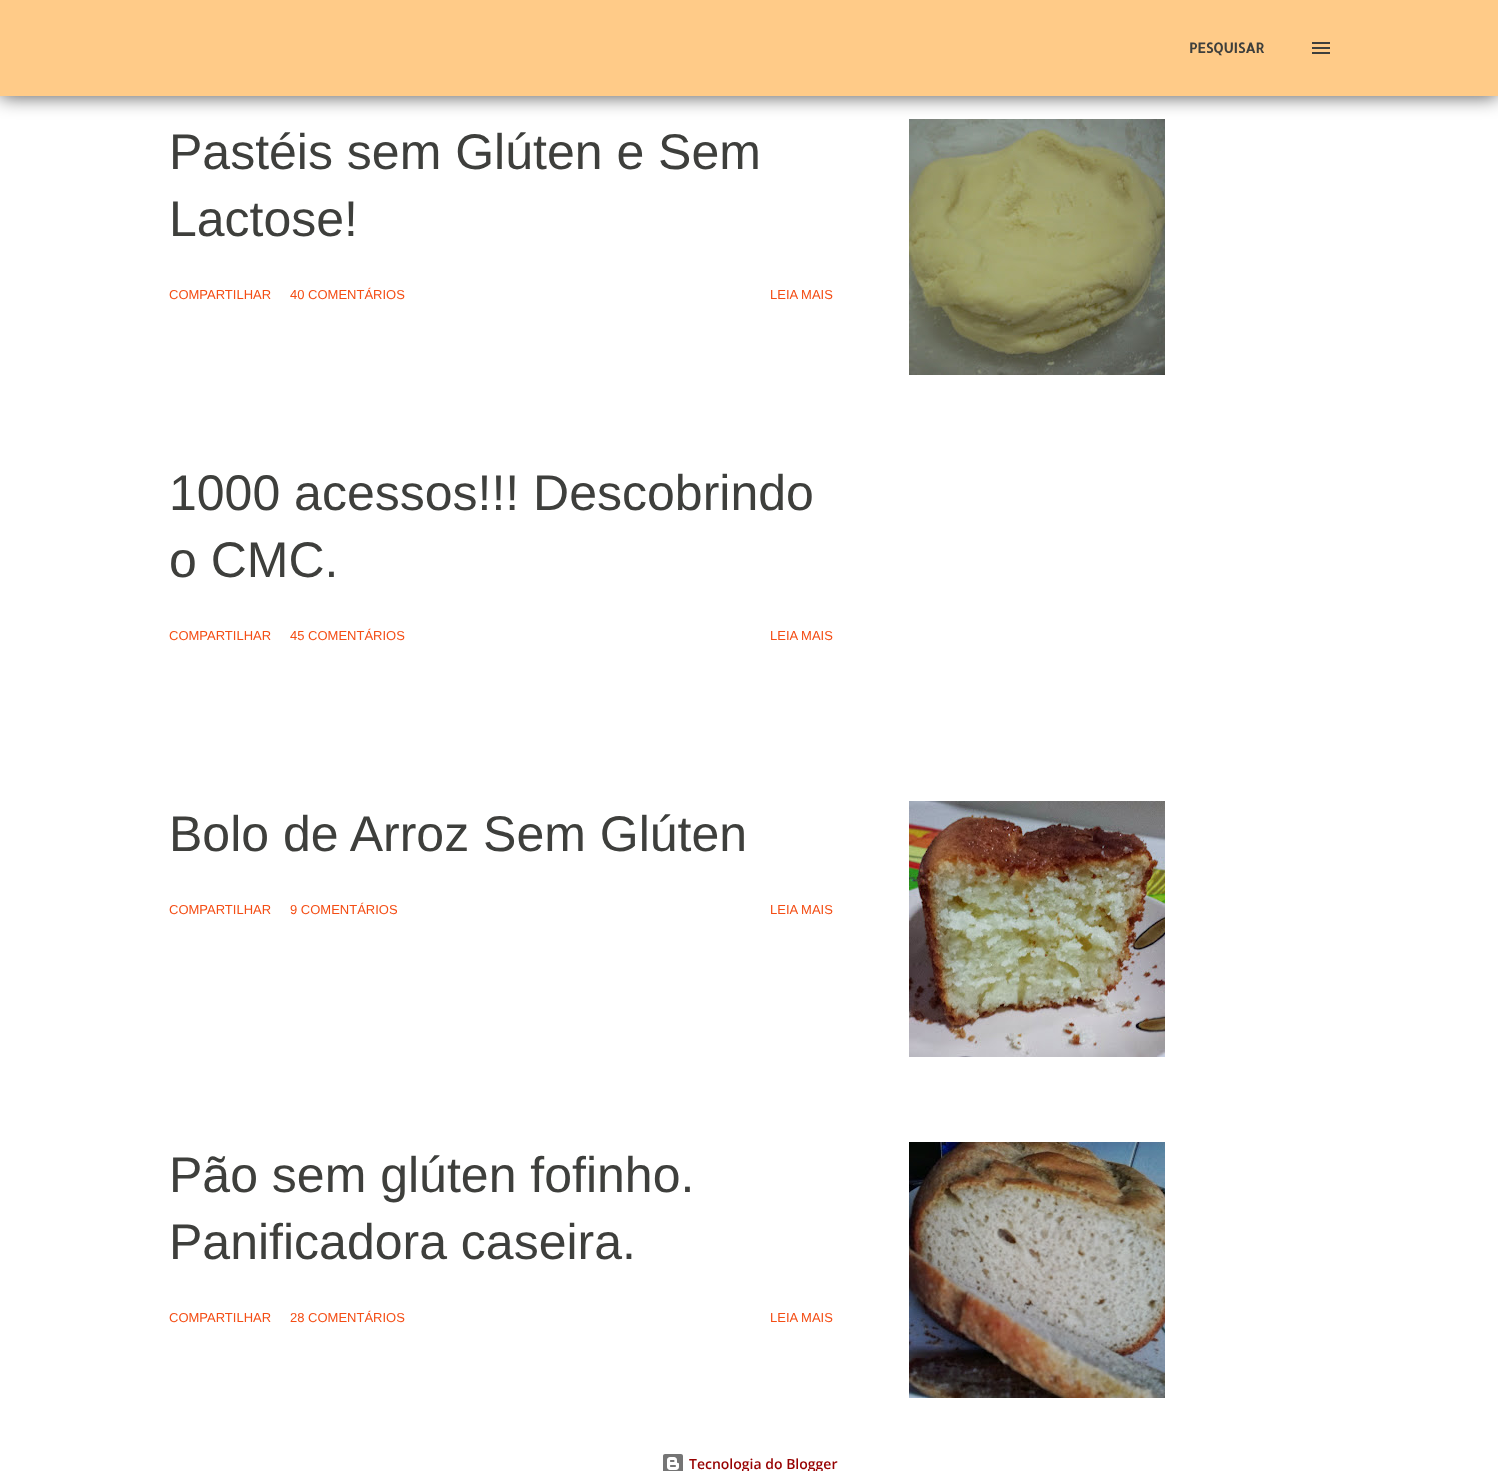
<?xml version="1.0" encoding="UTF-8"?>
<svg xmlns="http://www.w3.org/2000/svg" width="1498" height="1471">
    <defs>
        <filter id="blur1" x="-50%" y="-200%" width="200%" height="500%"><feGaussianBlur stdDeviation="10"/></filter>
    </defs>
    <rect width="100%" height="100%" fill="#FFFFFF"/>
    <image x="909" y="119" width="256" height="256" href="img_02.png"/>
    <rect x="0" y="0" width="1498" height="96" fill="#000000" fill-opacity="0.7" filter="url(#blur1)"/>
    <rect x="0" y="0" width="1498" height="96" fill="#FFCB88"/>
    <text x="1189" y="53" font-family="Allerta" font-size="14" font-weight="700" fill="#3E3F3C">PESQUISAR</text>
    <image x="1312" y="42" width="18" height="12" href="img_01.png"/>
    <text font-family="Liberation Sans" font-size="50" fill="#3E3F3C">
        <tspan x="169" y="169">Pastéis sem Glúten e Sem</tspan>
        <tspan x="169" y="236">Lactose!</tspan>
    </text>
    <text x="169" y="299" font-family="Liberation Sans" font-size="13" fill="#F44D14">COMPARTILHAR</text>
    <text x="290" y="299" font-family="Liberation Sans" font-size="13" fill="#F44D14">40 COMENTÁRIOS</text>
    <text x="770" y="299" font-family="Liberation Sans" font-size="13" fill="#F44D14">LEIA MAIS</text>
    <text font-family="Liberation Sans" font-size="50" fill="#3E3F3C">
        <tspan x="169" y="510">1000 acessos!!! Descobrindo</tspan>
        <tspan x="169" y="577">o CMC.</tspan>
    </text>
    <text x="169" y="640" font-family="Liberation Sans" font-size="13" fill="#F44D14">COMPARTILHAR</text>
    <text x="290" y="640" font-family="Liberation Sans" font-size="13" fill="#F44D14">45 COMENTÁRIOS</text>
    <text x="770" y="640" font-family="Liberation Sans" font-size="13" fill="#F44D14">LEIA MAIS</text>
    <text x="169" y="851" font-family="Liberation Sans" font-size="50" fill="#3E3F3C">Bolo de Arroz Sem Glúten</text>
    <text x="169" y="914" font-family="Liberation Sans" font-size="13" fill="#F44D14">COMPARTILHAR</text>
    <text x="290" y="914" font-family="Liberation Sans" font-size="13" fill="#F44D14">9 COMENTÁRIOS</text>
    <text x="770" y="914" font-family="Liberation Sans" font-size="13" fill="#F44D14">LEIA MAIS</text>
    <image x="909" y="801" width="256" height="256" href="img_03.png"/>
    <text font-family="Liberation Sans" font-size="50" fill="#3E3F3C">
        <tspan x="169" y="1192">Pão sem glúten fofinho.</tspan>
        <tspan x="169" y="1259">Panificadora caseira.</tspan>
    </text>
    <text x="169" y="1322" font-family="Liberation Sans" font-size="13" fill="#F44D14">COMPARTILHAR</text>
    <text x="290" y="1322" font-family="Liberation Sans" font-size="13" fill="#F44D14">28 COMENTÁRIOS</text>
    <text x="770" y="1322" font-family="Liberation Sans" font-size="13" fill="#F44D14">LEIA MAIS</text>
    <image x="909" y="1142" width="256" height="256" href="img_04.png"/>
    <image x="663" y="1454" width="20" height="17" href="img_05.png"/>
    <text x="689" y="1469" font-family="Open Sans" font-size="14" font-weight="600" fill="#970101">Tecnologia do Blogger</text>
</svg>
